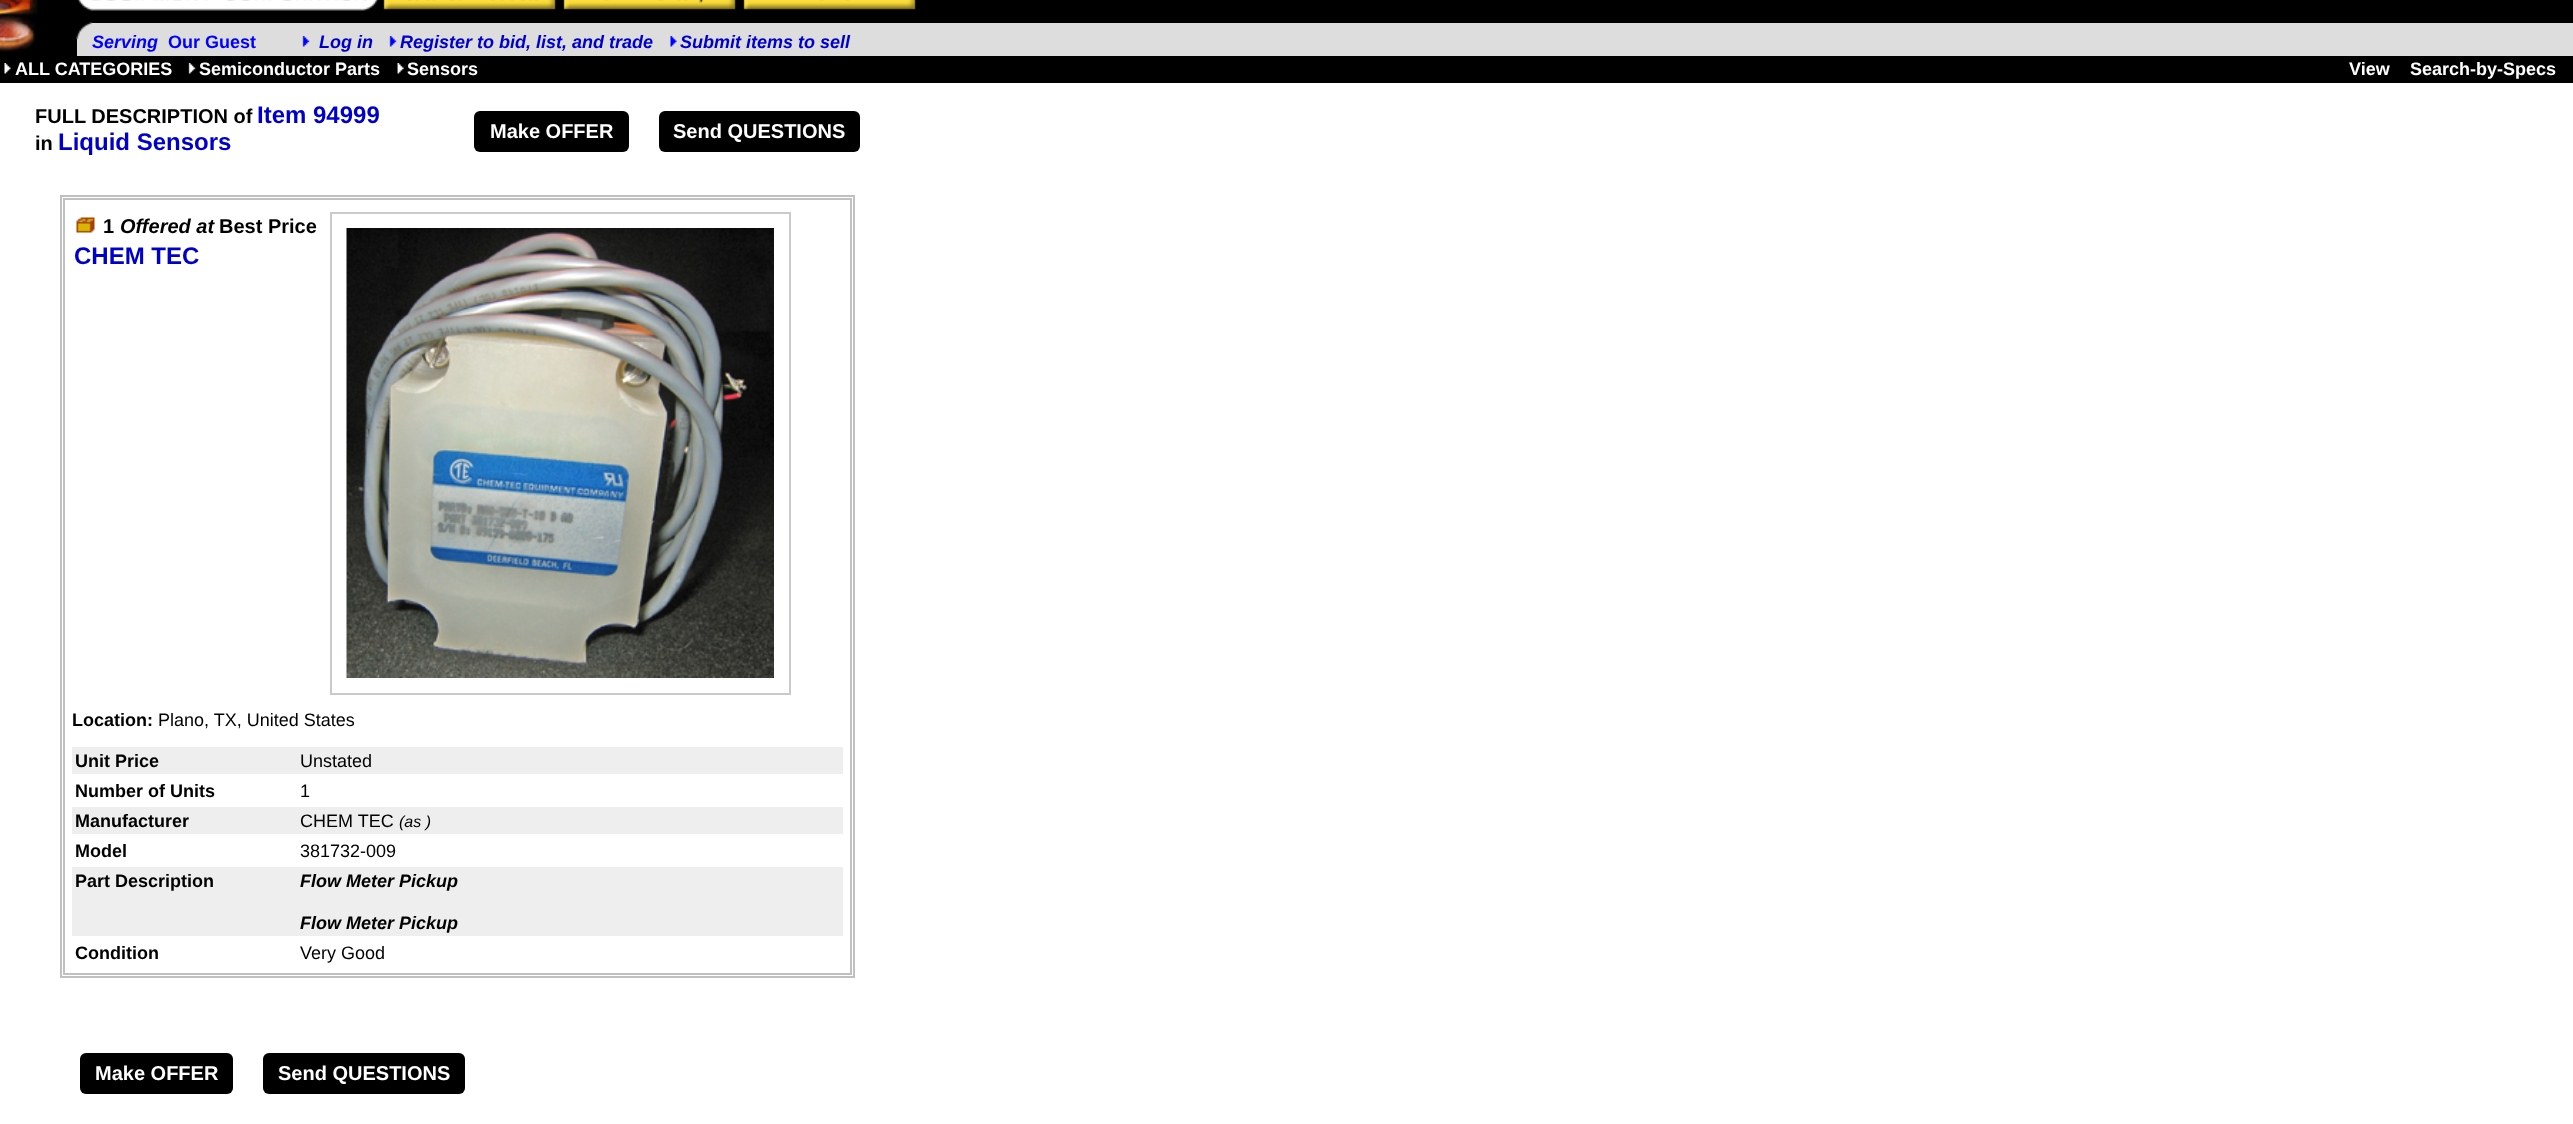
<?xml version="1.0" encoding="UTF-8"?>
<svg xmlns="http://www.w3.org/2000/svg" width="2573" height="1124">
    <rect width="100%" height="100%" fill="#FFFFFF"/>
    <rect x="0" y="0" width="2573" height="83" fill="#000000"/>
    <image x="0" y="0" width="38" height="55" href="img_01.png"/>
    <image x="77" y="0" width="302" height="11" href="img_02.png"/>
    <image x="383" y="0" width="173" height="10" href="img_03.png"/>
    <image x="563" y="0" width="173" height="10" href="img_04.png"/>
    <image x="743" y="0" width="173" height="10" href="img_05.png"/>
    <rect x="77" y="23" width="2496" height="33" fill="#DDDDDD"/>
    <image x="76" y="22" width="16" height="18" href="img_06.png"/>
    <text x="92" y="48" font-family="Liberation Sans" font-size="18" font-weight="700" font-style="italic" fill="#0000FF">Serving</text>
    <text x="168" y="48" font-family="Liberation Sans" font-size="18" font-weight="700" fill="#0000FF">Our Guest</text>
    <image x="302" y="36" width="8" height="11" href="img_07.png"/>
    <text x="319" y="48" font-family="Liberation Sans" font-size="18" font-weight="700" font-style="italic" fill="#0000CC">Log in</text>
    <image x="389" y="36" width="8" height="11" href="img_08.png"/>
    <text x="400" y="48" font-family="Liberation Sans" font-size="18" font-weight="700" font-style="italic" fill="#0000CC">Register to bid, list, and trade</text>
    <image x="670" y="36" width="7" height="11" href="img_09.png"/>
    <text x="680" y="48" font-family="Liberation Sans" font-size="18" font-weight="700" font-style="italic" fill="#0000CC">Submit items to sell</text>
    <image x="4" y="63" width="7" height="11" href="img_10.png"/>
    <text x="15" y="75" font-family="Liberation Sans" font-size="18" font-weight="700" fill="#FFFFFF">ALL CATEGORIES</text>
    <image x="188" y="63" width="8" height="11" href="img_11.png"/>
    <text x="199" y="75" font-family="Liberation Sans" font-size="18" font-weight="700" fill="#FFFFFF">Semiconductor Parts</text>
    <image x="397" y="63" width="7" height="11" href="img_12.png"/>
    <text x="407" y="75" font-family="Liberation Sans" font-size="18" font-weight="700" fill="#FFFFFF">Sensors</text>
    <text x="2349" y="75" font-family="Liberation Sans" font-size="18" font-weight="700" fill="#FFFFFF">View</text>
    <text x="2410" y="75" font-family="Liberation Sans" font-size="18" font-weight="700" fill="#FFFFFF">Search-by-Specs</text>
    <text x="35" y="123" font-family="Liberation Sans" font-size="20" font-weight="700" fill="#000000">FULL DESCRIPTION of</text>
    <text x="257" y="123" font-family="Liberation Sans" font-size="24" font-weight="700" fill="#0000CC">Item 94999</text>
    <text x="35" y="150" font-family="Liberation Sans" font-size="20" font-weight="700" fill="#000000">in</text>
    <text x="58" y="150" font-family="Liberation Sans" font-size="24" font-weight="700" fill="#0000CC">Liquid Sensors</text>
    <rect x="474" y="111" width="155" height="41" rx="6" fill="#000000"/>
    <text x="490" y="138" font-family="Liberation Sans" font-size="20" font-weight="700" fill="#FFFFFF">Make OFFER</text>
    <rect x="659" y="111" width="201" height="41" rx="6" fill="#000000"/>
    <text x="673" y="138" font-family="Liberation Sans" font-size="20" font-weight="700" fill="#FFFFFF">Send QUESTIONS</text>
    <rect x="61" y="196" width="793" height="781" fill="none" stroke="#C0C0C0" stroke-width="2"/>
    <rect x="64" y="199" width="787" height="775" fill="none" stroke="#C0C0C0" stroke-width="2"/>
    <image x="76" y="217" width="19" height="16" href="img_13.png"/>
    <text x="103" y="233" font-family="Liberation Sans" font-size="20" font-weight="700" fill="#000000">1</text>
    <text x="120" y="233" font-family="Liberation Sans" font-size="20" font-weight="700" font-style="italic" fill="#000000">Offered at</text>
    <text x="219" y="233" font-family="Liberation Sans" font-size="20" font-weight="700" fill="#000000">Best Price</text>
    <text x="74" y="264" font-family="Liberation Sans" font-size="24" font-weight="700" fill="#0000CC">CHEM TEC</text>
    <rect x="331" y="213" width="459" height="481" fill="none" stroke="#CACACA" stroke-width="2"/>
    <image x="346" y="228" width="428" height="450" href="img_14.png"/>
    <text x="72" y="726" font-family="Liberation Sans" font-size="18" font-weight="700" fill="#000000">Location:</text>
    <text x="158" y="726" font-family="Liberation Sans" font-size="18" fill="#000000">Plano, TX, United States</text>
    <rect x="72" y="747" width="771" height="27" fill="#EEEEEE"/>
    <text x="75" y="767" font-family="Liberation Sans" font-size="18" font-weight="700" fill="#000000">Unit Price</text>
    <text x="300" y="767" font-family="Liberation Sans" font-size="18" fill="#000000">Unstated</text>
    <text x="75" y="797" font-family="Liberation Sans" font-size="18" font-weight="700" fill="#000000">Number of Units</text>
    <text x="300" y="797" font-family="Liberation Sans" font-size="18" fill="#000000">1</text>
    <rect x="72" y="807" width="771" height="27" fill="#EEEEEE"/>
    <text x="75" y="827" font-family="Liberation Sans" font-size="18" font-weight="700" fill="#000000">Manufacturer</text>
    <text x="300" y="827" font-family="Liberation Sans" font-size="18" fill="#000000">CHEM TEC</text>
    <text x="399" y="827" font-family="Liberation Sans" font-size="16" font-style="italic" fill="#000000">(as )</text>
    <text x="75" y="857" font-family="Liberation Sans" font-size="18" font-weight="700" fill="#000000">Model</text>
    <text x="300" y="857" font-family="Liberation Sans" font-size="18" fill="#000000">381732-009</text>
    <rect x="72" y="867" width="771" height="69" fill="#EEEEEE"/>
    <text x="75" y="887" font-family="Liberation Sans" font-size="18" font-weight="700" fill="#000000">Part Description</text>
    <text x="300" y="887" font-family="Liberation Sans" font-size="18" font-weight="700" font-style="italic" fill="#000000">Flow Meter Pickup</text>
    <text x="300" y="929" font-family="Liberation Sans" font-size="18" font-weight="700" font-style="italic" fill="#000000">Flow Meter Pickup</text>
    <text x="75" y="959" font-family="Liberation Sans" font-size="18" font-weight="700" fill="#000000">Condition</text>
    <text x="300" y="959" font-family="Liberation Sans" font-size="18" fill="#000000">Very Good</text>
    <rect x="80" y="1053" width="153" height="41" rx="6" fill="#000000"/>
    <text x="95" y="1080" font-family="Liberation Sans" font-size="20" font-weight="700" fill="#FFFFFF">Make OFFER</text>
    <rect x="263" y="1053" width="202" height="41" rx="6" fill="#000000"/>
    <text x="278" y="1080" font-family="Liberation Sans" font-size="20" font-weight="700" fill="#FFFFFF">Send QUESTIONS</text>
</svg>
